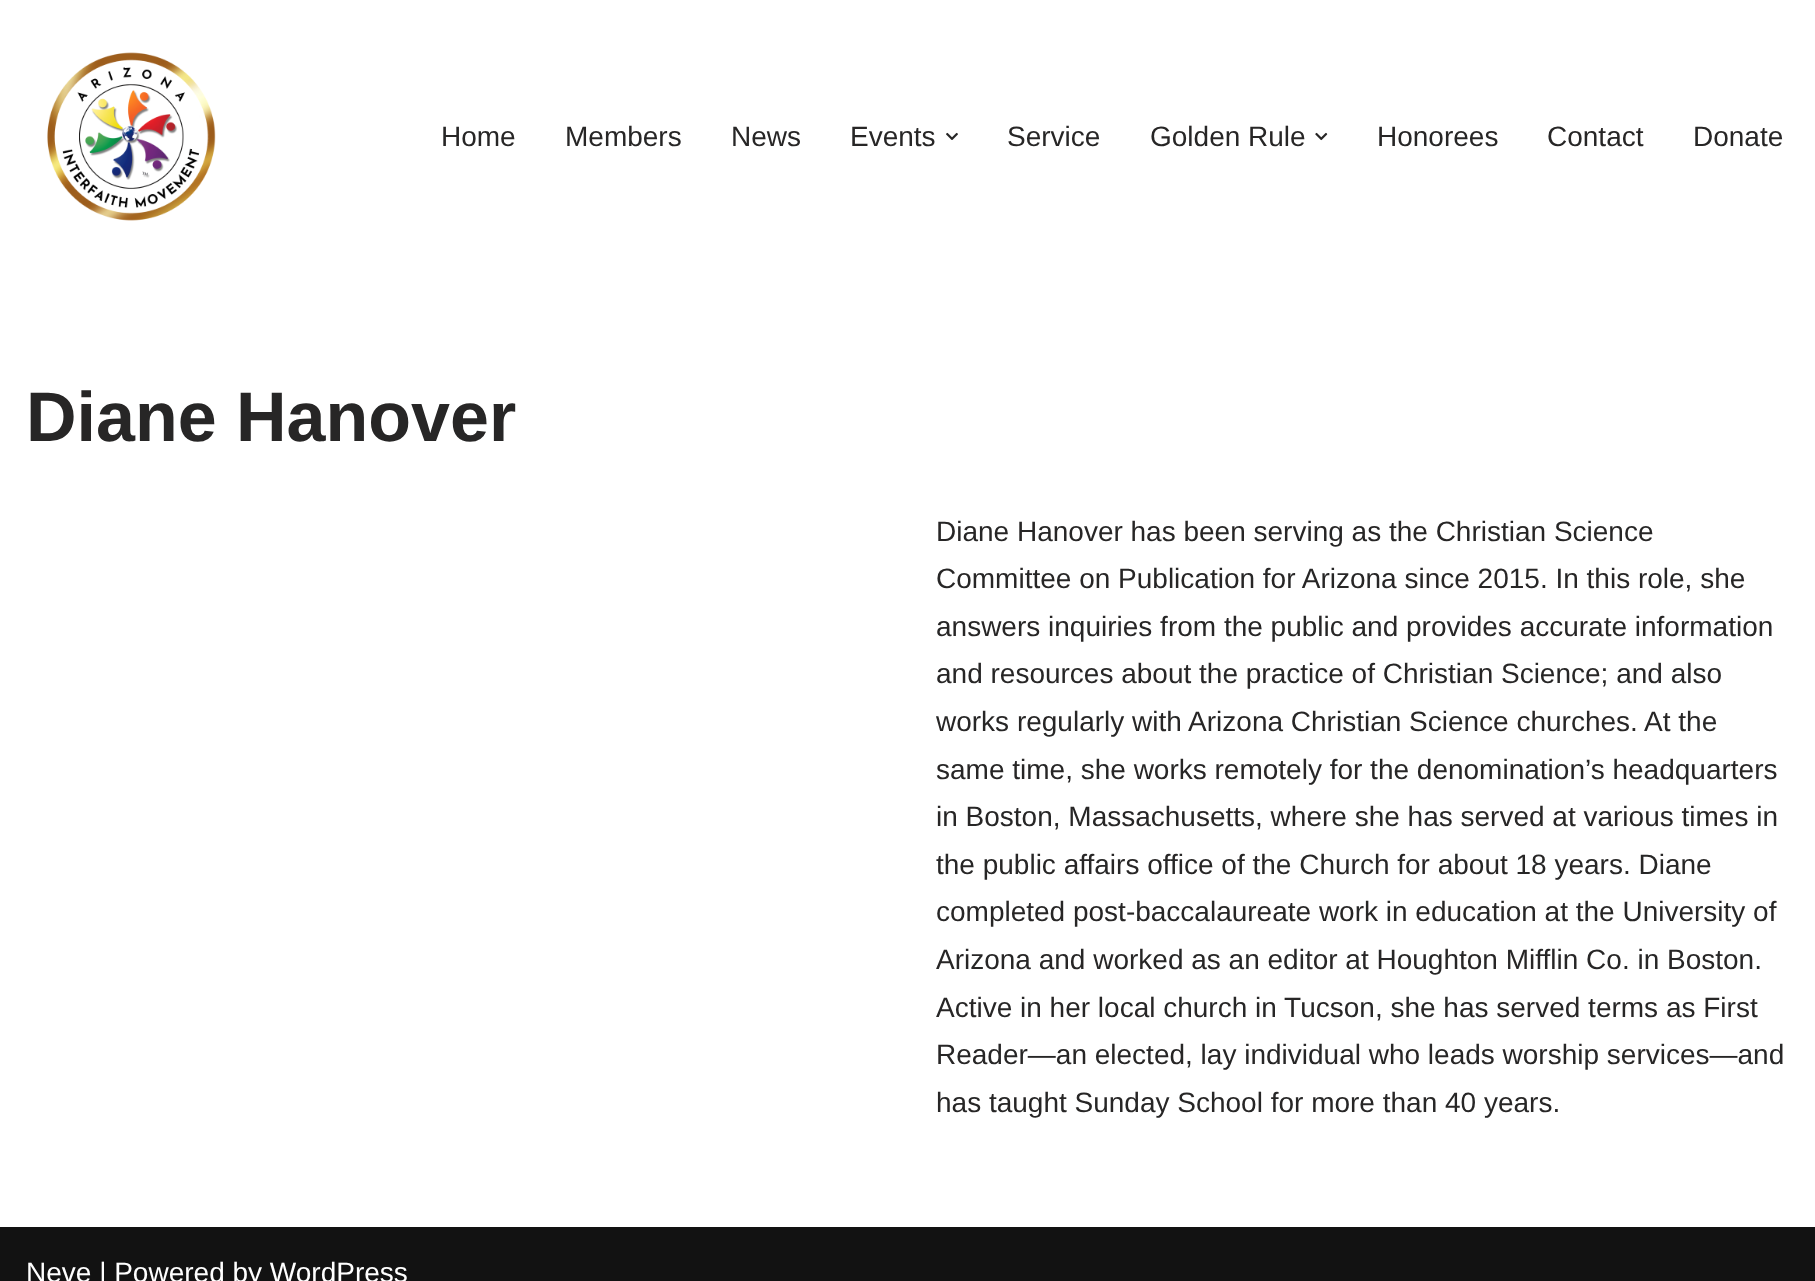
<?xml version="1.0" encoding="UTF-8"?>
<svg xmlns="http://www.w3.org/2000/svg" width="1815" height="1281">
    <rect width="100%" height="100%" fill="#FFFFFF"/>
    <image x="47" y="52" width="169" height="169" href="img_01.png"/>
    <text x="441" y="146" font-family="Liberation Sans" font-size="28" fill="#272626">Home</text>
    <text x="565" y="146" font-family="Liberation Sans" font-size="28" fill="#272626">Members</text>
    <text x="731" y="146" font-family="Liberation Sans" font-size="28" fill="#272626">News</text>
    <text x="850" y="146" font-family="Liberation Sans" font-size="28" fill="#272626">Events</text>
    <image x="946" y="132" width="12" height="8" href="img_02.png"/>
    <text x="1007" y="146" font-family="Liberation Sans" font-size="28" fill="#272626">Service</text>
    <text x="1150" y="146" font-family="Liberation Sans" font-size="28" fill="#272626">Golden Rule</text>
    <image x="1315" y="132" width="13" height="9" href="img_03.png"/>
    <text x="1377" y="146" font-family="Liberation Sans" font-size="28" fill="#272626">Honorees</text>
    <text x="1547" y="146" font-family="Liberation Sans" font-size="28" fill="#272626">Contact</text>
    <text x="1693" y="146" font-family="Liberation Sans" font-size="28" fill="#272626">Donate</text>
    <text x="26" y="441" font-family="Liberation Sans" font-size="70" font-weight="700" fill="#272626">Diane Hanover</text>
    <text font-family="Liberation Sans" font-size="28" fill="#272626">
        <tspan x="936" y="541">Diane Hanover has been serving as the Christian Science</tspan>
        <tspan x="936" y="588">Committee on Publication for Arizona since 2015. In this role, she</tspan>
        <tspan x="936" y="636">answers inquiries from the public and provides accurate information</tspan>
        <tspan x="936" y="683">and resources about the practice of Christian Science; and also</tspan>
        <tspan x="936" y="731">works regularly with Arizona Christian Science churches. At the</tspan>
        <tspan x="936" y="779">same time, she works remotely for the denomination’s headquarters</tspan>
        <tspan x="936" y="826">in Boston, Massachusetts, where she has served at various times in</tspan>
        <tspan x="936" y="874">the public affairs office of the Church for about 18 years. Diane</tspan>
        <tspan x="936" y="921">completed post-baccalaureate work in education at the University of</tspan>
        <tspan x="936" y="969">Arizona and worked as an editor at Houghton Mifflin Co. in Boston.</tspan>
        <tspan x="936" y="1017">Active in her local church in Tucson, she has served terms as First</tspan>
        <tspan x="936" y="1064">Reader—an elected, lay individual who leads worship services—and</tspan>
        <tspan x="936" y="1112">has taught Sunday School for more than 40 years.</tspan>
    </text>
    <rect x="0" y="1227" width="1815" height="54" fill="#121212"/>
    <text x="26" y="1282" font-family="Liberation Sans" font-size="28" fill="#FFFFFF">Neve | Powered by WordPress</text>
</svg>
